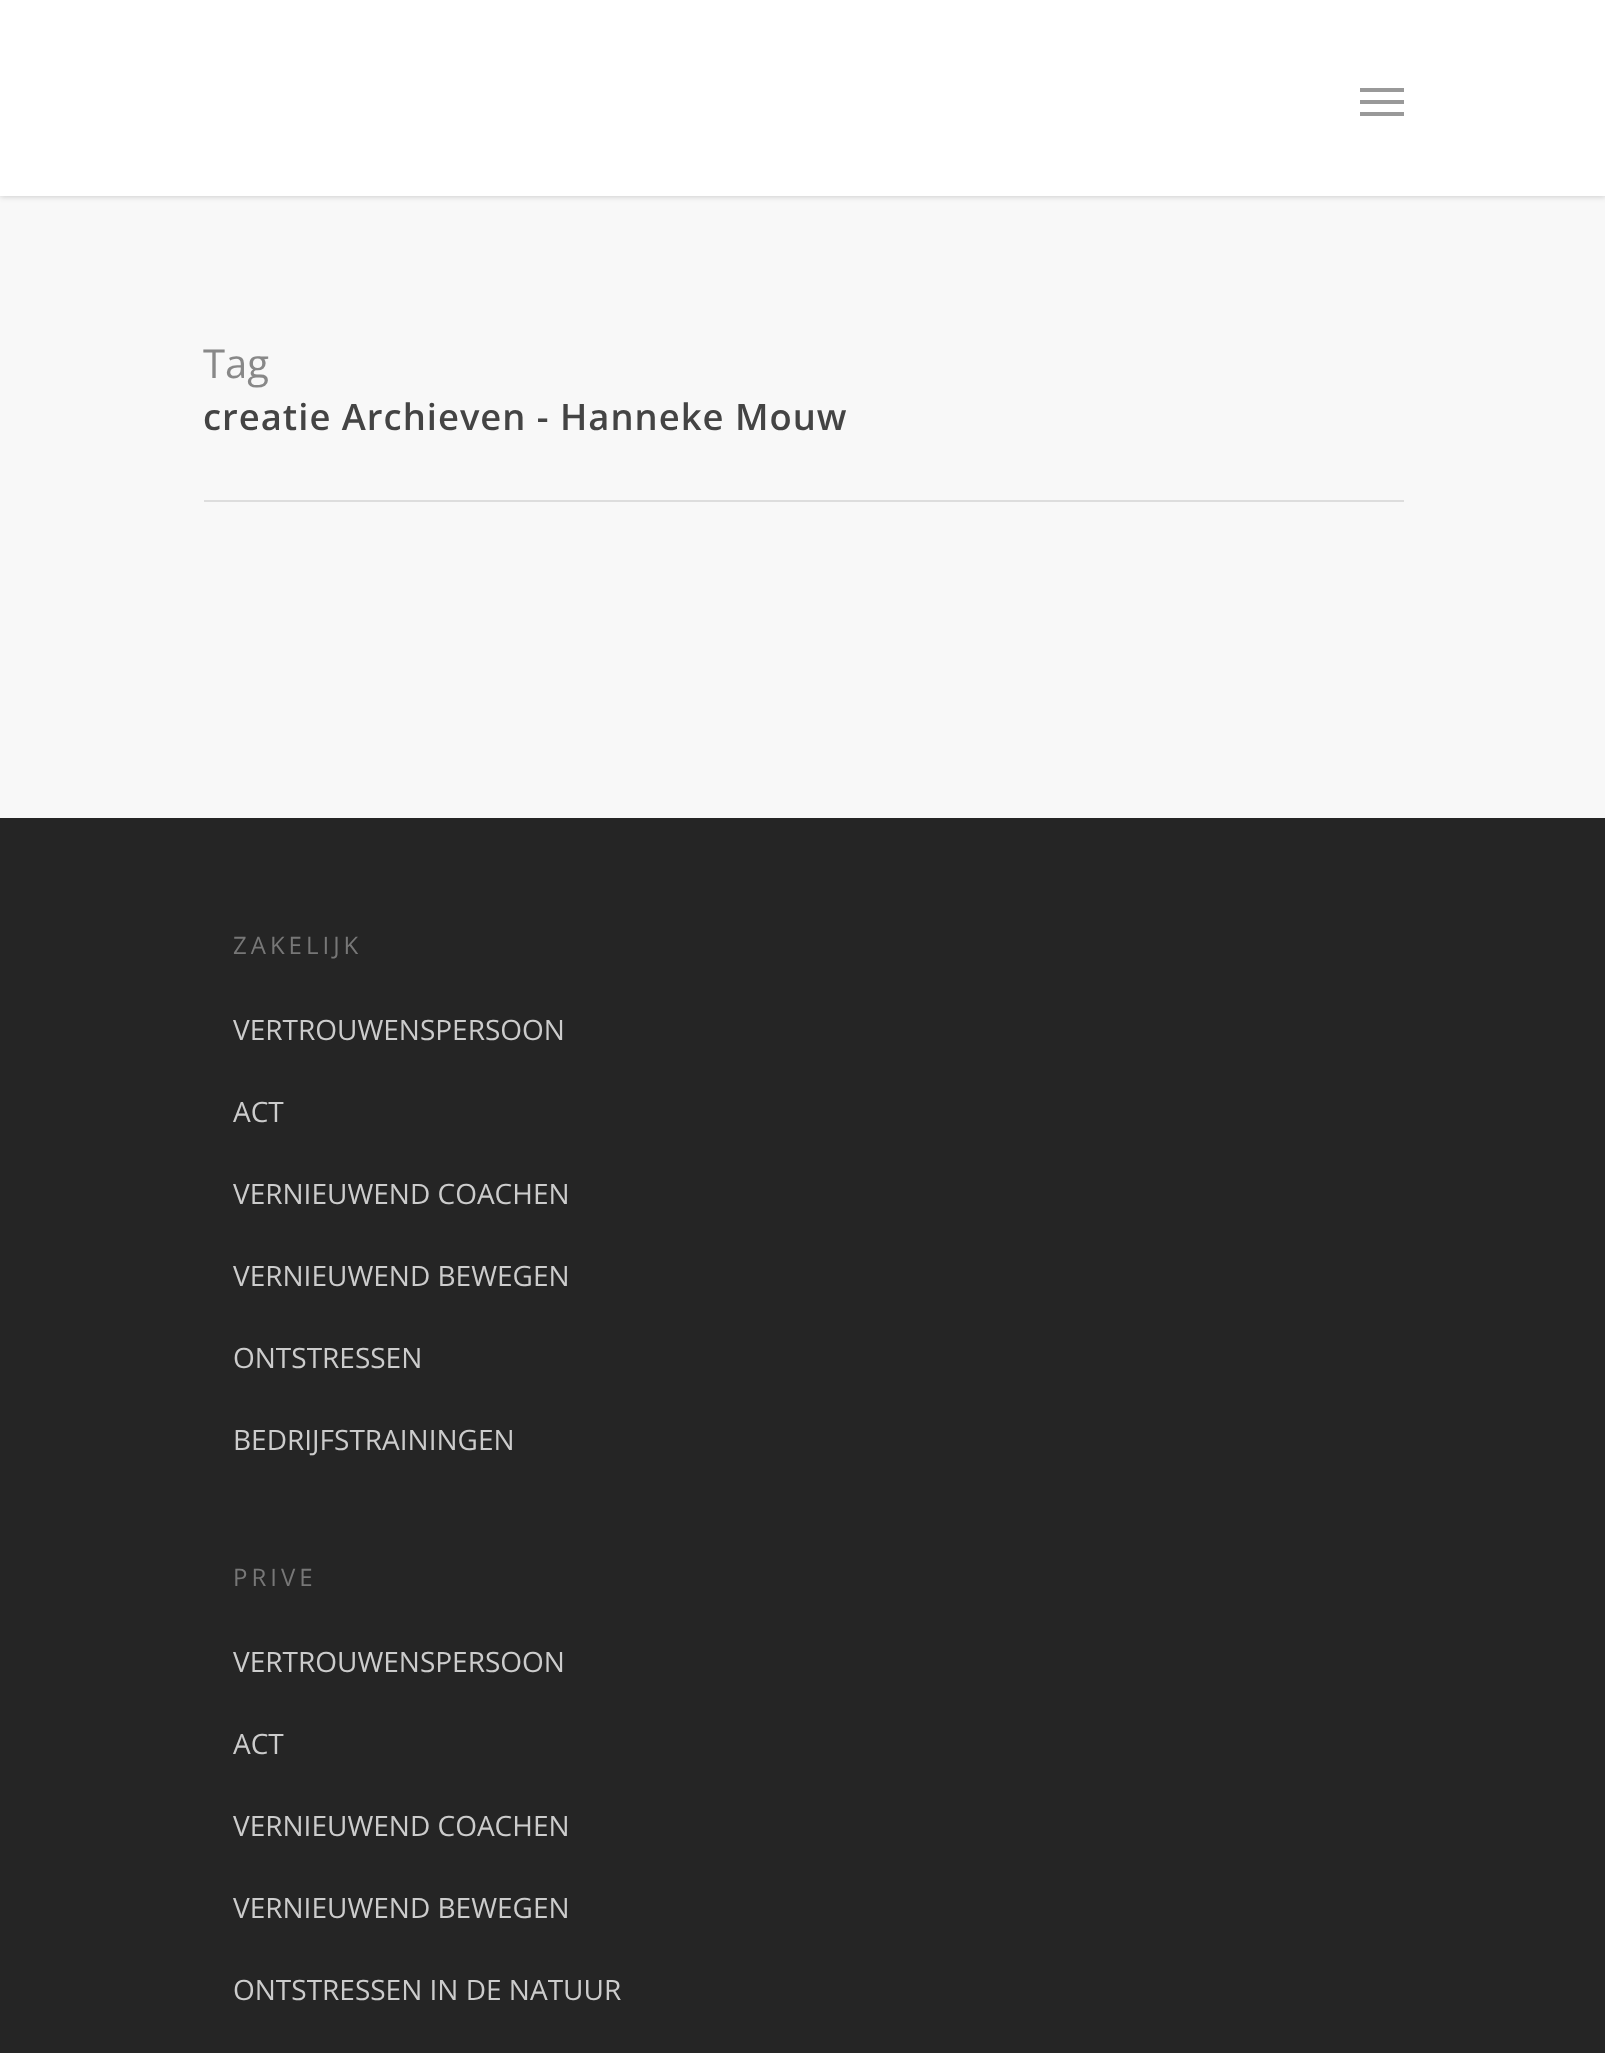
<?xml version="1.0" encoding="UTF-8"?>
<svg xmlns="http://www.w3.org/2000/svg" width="1605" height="2053">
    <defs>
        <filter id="blur1" x="-50%" y="-200%" width="200%" height="500%"><feGaussianBlur stdDeviation="3"/></filter>
    </defs>
    <rect width="100%" height="100%" fill="#252525"/>
    <rect x="0" y="196" width="1605" height="622" fill="#F8F8F8"/>
    <rect x="0" y="0" width="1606" height="196" fill="#000000" fill-opacity="0.22" filter="url(#blur1)"/>
    <rect x="0" y="0" width="1605" height="196" fill="#FFFFFF"/>
    <rect x="1360" y="88" width="44" height="4" fill="#999999"/>
    <rect x="1360" y="112" width="44" height="4" fill="#999999"/>
    <rect x="1360" y="100" width="44" height="4" fill="#999999"/>
    <rect x="204" y="500" width="1200" height="2" fill="#DDDDDD"/>
    <text x="203" y="378" font-family="Open Sans" font-size="40" fill="#888888">Tag</text>
    <text x="203" y="430" font-family="Open Sans" font-size="36.4" font-weight="600" letter-spacing="1" fill="#444444">creatie Archieven - Hanneke Mouw</text>
    <text x="233" y="954" font-family="Open Sans" font-size="24" letter-spacing="4" fill="#777777">ZAKELIJK</text>
    <text x="233" y="1040" font-family="Open Sans" font-size="28" fill="#CCCCCC">VERTROUWENSPERSOON</text>
    <text x="233" y="1122" font-family="Open Sans" font-size="28" fill="#CCCCCC">ACT</text>
    <text x="233" y="1204" font-family="Open Sans" font-size="28" fill="#CCCCCC">VERNIEUWEND COACHEN</text>
    <text x="233" y="1286" font-family="Open Sans" font-size="28" fill="#CCCCCC">VERNIEUWEND BEWEGEN</text>
    <text x="233" y="1368" font-family="Open Sans" font-size="28" fill="#CCCCCC">ONTSTRESSEN</text>
    <text x="233" y="1450" font-family="Open Sans" font-size="28" fill="#CCCCCC">BEDRIJFSTRAININGEN</text>
    <text x="233" y="1586" font-family="Open Sans" font-size="24" letter-spacing="4" fill="#777777">PRIVE</text>
    <text x="233" y="1672" font-family="Open Sans" font-size="28" fill="#CCCCCC">VERTROUWENSPERSOON</text>
    <text x="233" y="1754" font-family="Open Sans" font-size="28" fill="#CCCCCC">ACT</text>
    <text x="233" y="1836" font-family="Open Sans" font-size="28" fill="#CCCCCC">VERNIEUWEND COACHEN</text>
    <text x="233" y="1918" font-family="Open Sans" font-size="28" fill="#CCCCCC">VERNIEUWEND BEWEGEN</text>
    <text x="233" y="2000" font-family="Open Sans" font-size="28" fill="#CCCCCC">ONTSTRESSEN IN DE NATUUR</text>
</svg>
